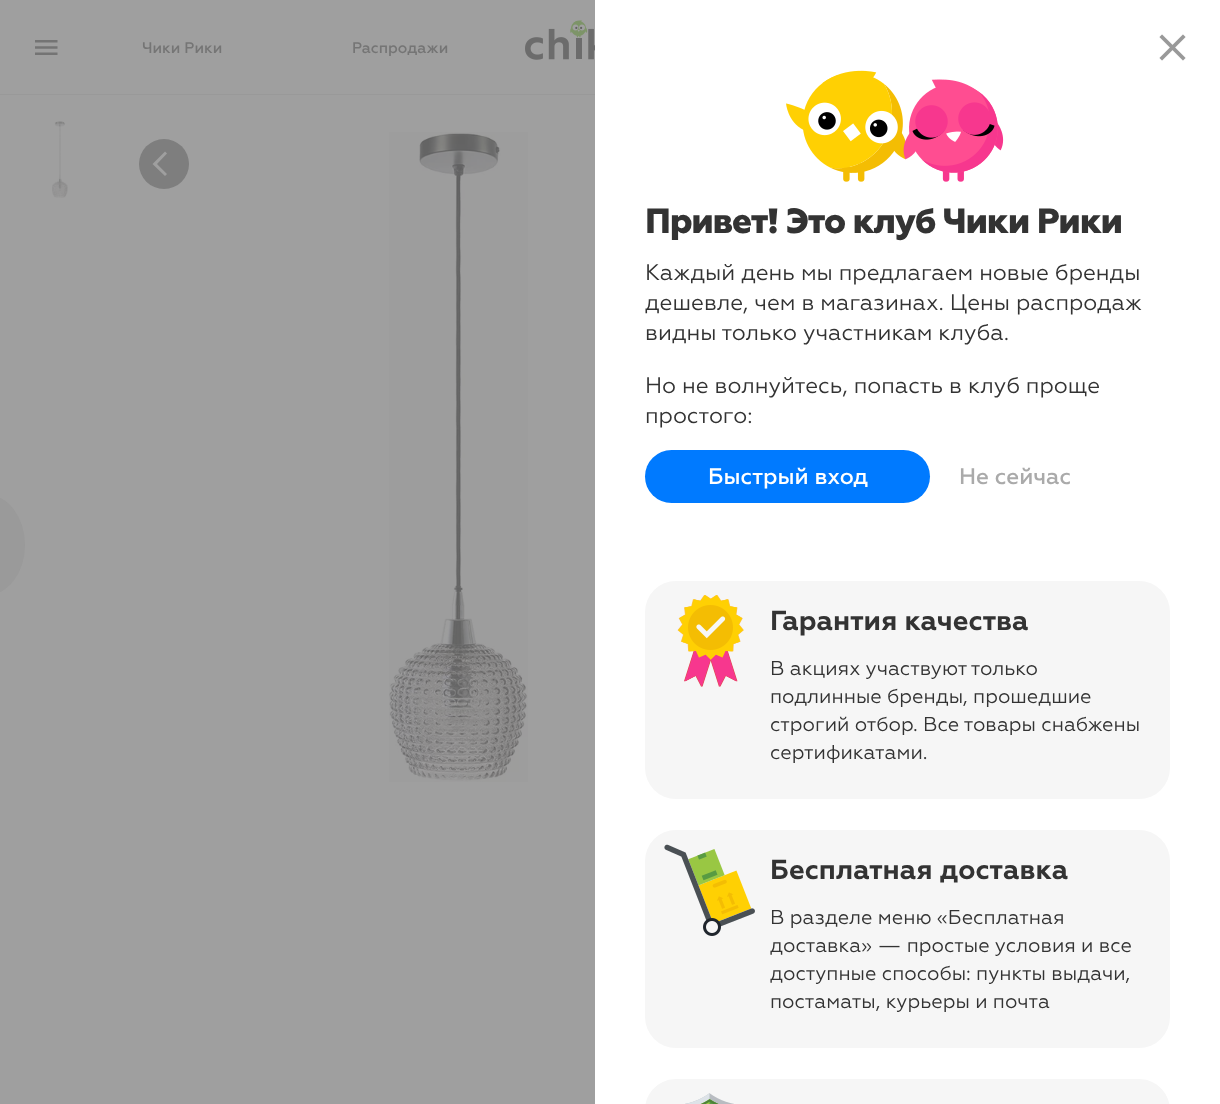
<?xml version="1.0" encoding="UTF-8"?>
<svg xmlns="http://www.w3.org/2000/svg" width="1220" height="1104">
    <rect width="100%" height="100%" fill="#9F9F9F"/>
    <rect x="0" y="94" width="595" height="1" fill="#999999"/>
    <image x="35" y="40" width="23" height="15" href="img_01.png"/>
    <text x="142" y="53" font-family="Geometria" font-size="15.25" font-weight="500" fill="#757575">Чики Рики</text>
    <text x="352" y="53" font-family="Geometria" font-size="15.25" font-weight="500" fill="#757575">Распродажи</text>
    <image x="525" y="20" width="70" height="40" href="img_02.png"/>
    <rect x="-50" y="495" width="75" height="100" rx="50" fill="#9A9A9A"/>
    <image x="52" y="121" width="16" height="77" href="img_03.png"/>
    <circle cx="164" cy="164" r="25" fill="#7E7E7E"/>
    <path d="M 167 153.5 L 157 164 L 167 174 L 165 176 L 152.5 164 L 165 151.5 Z" fill="#9F9F9F"/>
    <image x="389" y="132" width="139" height="650" href="img_04.png"/>
    <rect x="595" y="0" width="625" height="1104" fill="#FFFFFF"/>
    <image x="1159" y="34" width="27" height="27" href="img_05.png"/>
    <image x="786" y="70" width="218" height="112" href="img_06.png"/>
    <text x="645" y="233" font-family="Geometria" font-size="35" font-weight="800" letter-spacing="-1.25" fill="#333333">Привет! Это клуб Чики Рики</text>
    <text font-family="Geometria" font-size="22.5" fill="#333333">
        <tspan x="645" y="280">Каждый день мы предлагаем новые бренды</tspan>
        <tspan x="645" y="310">дешевле, чем в магазинах. Цены распродаж</tspan>
        <tspan x="645" y="340">видны только участникам клуба.</tspan>
    </text>
    <text font-family="Geometria" font-size="22.5" fill="#333333">
        <tspan x="645" y="393">Но не волнуйтесь, попасть в клуб проще</tspan>
        <tspan x="645" y="423">простого:</tspan>
    </text>
    <rect x="645" y="581" width="525" height="218" rx="31" fill="#F6F6F6"/>
    <image x="677" y="595" width="67" height="92" href="img_07.png"/>
    <text x="770" y="630" font-family="Geometria" font-size="27.5" font-weight="700" fill="#333333">Гарантия качества</text>
    <text font-family="Geometria" font-size="20" fill="#333333">
        <tspan x="770" y="675">В акциях участвуют только</tspan>
        <tspan x="770" y="703">подлинные бренды, прошедшие</tspan>
        <tspan x="770" y="731">строгий отбор. Все товары снабжены</tspan>
        <tspan x="770" y="759">сертификатами.</tspan>
    </text>
    <rect x="645" y="830" width="525" height="218" rx="31" fill="#F6F6F6"/>
    <image x="664" y="844" width="91" height="92" href="img_08.png"/>
    <text x="770" y="879" font-family="Geometria" font-size="27.5" font-weight="700" fill="#333333">Бесплатная доставка</text>
    <text font-family="Geometria" font-size="20" fill="#333333">
        <tspan x="770" y="924">В разделе меню «Бесплатная</tspan>
        <tspan x="770" y="952">доставка» — простые условия и все</tspan>
        <tspan x="770" y="980">доступные способы: пункты выдачи,</tspan>
        <tspan x="770" y="1008">постаматы, курьеры и почта</tspan>
    </text>
    <path d="M 676 1079 H 1139 C 1156 1079 1170 1093 1170 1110 V 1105 H 645 V 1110 C 645 1093 659 1079 676 1079 Z" fill="#F6F6F6"/>
    <image x="685" y="1093" width="49" height="11" href="img_09.png"/>
    <rect x="645" y="450" width="285" height="53" rx="26.5" fill="#007AFF"/>
    <text x="708" y="484" font-family="Geometria" font-size="22.5" font-weight="500" fill="#FFFFFF">Быстрый вход</text>
    <text x="959" y="484" font-family="Geometria" font-size="22.5" font-weight="500" fill="#AAAAAA">Не сейчас</text>
</svg>
